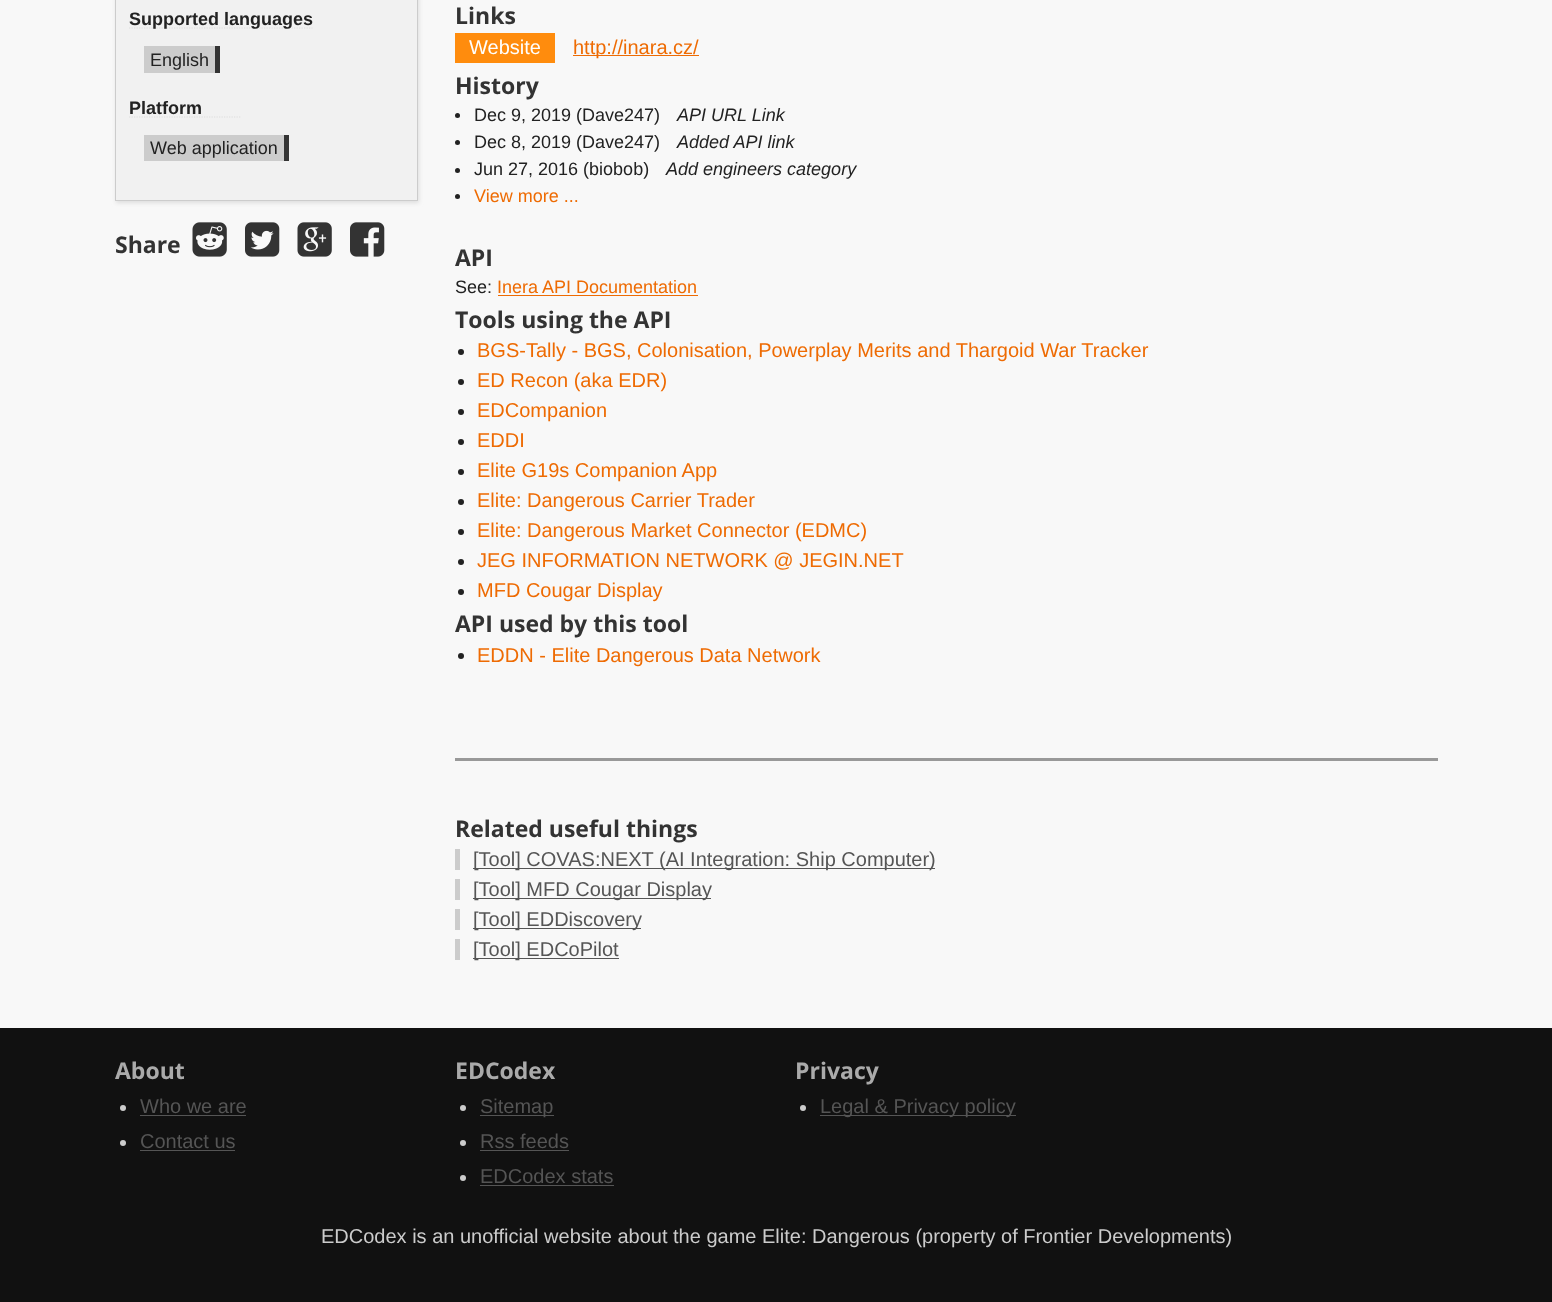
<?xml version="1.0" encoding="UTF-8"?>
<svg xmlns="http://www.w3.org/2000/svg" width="1552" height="1302">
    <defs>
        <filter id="blur1" x="-50%" y="-200%" width="200%" height="500%"><feGaussianBlur stdDeviation="2"/></filter>
    </defs>
    <rect width="100%" height="100%" fill="#F8F8F8"/>
    <rect x="116" y="-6" width="303" height="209" fill="#DDDDDD" filter="url(#blur1)"/>
    <rect x="115.5" y="-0.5" width="302" height="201" fill="#F1F1F1" stroke="#CCCCCC"/>
    <path d="M 129 28 H 312.5" fill="none" stroke="#DDDDDD" stroke-width="1.2" stroke-dasharray="1.25 1.25"/>
    <text x="129" y="25" font-family="Liberation Sans" font-size="18" font-weight="700" fill="#222222">Supported languages</text>
    <rect x="144" y="46" width="71" height="27" fill="#CCCCCC"/>
    <rect x="215" y="46" width="5" height="27" fill="#333333"/>
    <text x="150" y="66" font-family="Liberation Sans" font-size="18" fill="#222222">English</text>
    <path d="M 129 117 H 241" fill="none" stroke="#DDDDDD" stroke-width="1.2" stroke-dasharray="1.25 1.25"/>
    <text x="129" y="114" font-family="Liberation Sans" font-size="18" font-weight="700" fill="#222222">Platform</text>
    <rect x="144" y="135" width="140" height="26" fill="#CCCCCC"/>
    <rect x="284" y="135" width="5" height="26" fill="#333333"/>
    <text x="150" y="154" font-family="Liberation Sans" font-size="18" fill="#222222">Web application</text>
    <text x="115" y="253" font-family="Open Sans" font-size="23" font-weight="700" fill="#333333">Share</text>
    <image x="192" y="222" width="35" height="35" href="img_01.png"/>
    <image x="245" y="222" width="35" height="35" href="img_02.png"/>
    <image x="297" y="222" width="35" height="35" href="img_03.png"/>
    <image x="350" y="222" width="35" height="35" href="img_04.png"/>
    <text x="455" y="24" font-family="Open Sans" font-size="23" font-weight="700" fill="#333333">Links</text>
    <rect x="455" y="33" width="100" height="30" fill="#FF8C0D"/>
    <text x="469" y="54" font-family="Liberation Sans" font-size="20" fill="#FFFFFF">Website</text>
    <rect x="573" y="55" width="126" height="1" fill="#EE6B03"/>
    <text x="573" y="54" font-family="Liberation Sans" font-size="20" fill="#EE6B03">http://inara.cz/</text>
    <text x="455" y="94" font-family="Open Sans" font-size="23" font-weight="700" fill="#333333">History</text>
    <circle cx="457.5" cy="115.5" r="2.5" fill="#222222"/>
    <text x="474" y="121" font-family="Liberation Sans" font-size="18" fill="#222222">Dec 9, 2019 (Dave247)</text>
    <text x="677" y="121" font-family="Liberation Sans" font-size="18" font-style="italic" fill="#222222">API URL Link</text>
    <circle cx="457.5" cy="142.5" r="2.5" fill="#222222"/>
    <text x="474" y="148" font-family="Liberation Sans" font-size="18" fill="#222222">Dec 8, 2019 (Dave247)</text>
    <text x="677" y="148" font-family="Liberation Sans" font-size="18" font-style="italic" fill="#222222">Added API link</text>
    <circle cx="457.5" cy="170.5" r="2.5" fill="#222222"/>
    <text x="474" y="175" font-family="Liberation Sans" font-size="18" fill="#222222">Jun 27, 2016 (biobob)</text>
    <text x="666" y="175" font-family="Liberation Sans" font-size="18" font-style="italic" fill="#222222">Add engineers category</text>
    <circle cx="457.5" cy="196.5" r="2.5" fill="#222222"/>
    <text x="474" y="202" font-family="Liberation Sans" font-size="18" fill="#EE6B03">View more ...</text>
    <text x="455" y="266" font-family="Open Sans" font-size="23" font-weight="700" fill="#333333">API</text>
    <text x="455" y="293" font-family="Liberation Sans" font-size="18" fill="#222222">See:</text>
    <text x="497" y="293" font-family="Liberation Sans" font-size="18" fill="#EE6B03">Inera API Documentation</text>
    <rect x="498" y="295" width="200" height="1" fill="#EE6B03"/>
    <text x="455" y="328" font-family="Open Sans" font-size="23" font-weight="700" fill="#333333">Tools using the API</text>
    <circle cx="461" cy="352" r="3" fill="#222222"/>
    <text x="477" y="357" font-family="Liberation Sans" font-size="20" fill="#EE6B03">BGS-Tally - BGS, Colonisation, Powerplay Merits and Thargoid War Tracker</text>
    <circle cx="461" cy="382" r="3" fill="#222222"/>
    <text x="477" y="387" font-family="Liberation Sans" font-size="20" fill="#EE6B03">ED Recon (aka EDR)</text>
    <circle cx="461" cy="412" r="3" fill="#222222"/>
    <text x="477" y="417" font-family="Liberation Sans" font-size="20" fill="#EE6B03">EDCompanion</text>
    <circle cx="461" cy="442" r="3" fill="#222222"/>
    <text x="477" y="447" font-family="Liberation Sans" font-size="20" fill="#EE6B03">EDDI</text>
    <circle cx="461" cy="472" r="3" fill="#222222"/>
    <text x="477" y="477" font-family="Liberation Sans" font-size="20" fill="#EE6B03">Elite G19s Companion App</text>
    <circle cx="461" cy="502" r="3" fill="#222222"/>
    <text x="477" y="507" font-family="Liberation Sans" font-size="20" fill="#EE6B03">Elite: Dangerous Carrier Trader</text>
    <circle cx="461" cy="532" r="3" fill="#222222"/>
    <text x="477" y="537" font-family="Liberation Sans" font-size="20" fill="#EE6B03">Elite: Dangerous Market Connector (EDMC)</text>
    <circle cx="461" cy="562" r="3" fill="#222222"/>
    <text x="477" y="567" font-family="Liberation Sans" font-size="20" fill="#EE6B03">JEG INFORMATION NETWORK @ JEGIN.NET</text>
    <circle cx="461" cy="592" r="3" fill="#222222"/>
    <text x="477" y="597" font-family="Liberation Sans" font-size="20" fill="#EE6B03">MFD Cougar Display</text>
    <text x="455" y="632" font-family="Open Sans" font-size="23" font-weight="700" fill="#333333">API used by this tool</text>
    <circle cx="461" cy="656" r="3" fill="#222222"/>
    <text x="477" y="662" font-family="Liberation Sans" font-size="20" fill="#EE6B03">EDDN - Elite Dangerous Data Network</text>
    <rect x="455" y="758" width="983" height="3" fill="#999999"/>
    <text x="455" y="837" font-family="Open Sans" font-size="23" font-weight="700" fill="#333333">Related useful things</text>
    <rect x="473" y="868" width="462" height="1" fill="#555555"/>
    <text x="473" y="866" font-family="Liberation Sans" font-size="20" fill="#555555">[Tool] COVAS:NEXT (AI Integration: Ship Computer)</text>
    <rect x="455" y="849" width="5" height="21" fill="#CCCCCC"/>
    <rect x="473" y="898" width="238" height="1" fill="#555555"/>
    <text x="473" y="896" font-family="Liberation Sans" font-size="20" fill="#555555">[Tool] MFD Cougar Display</text>
    <rect x="455" y="879" width="5" height="21" fill="#CCCCCC"/>
    <rect x="473" y="928" width="168" height="1" fill="#555555"/>
    <text x="473" y="926" font-family="Liberation Sans" font-size="20" fill="#555555">[Tool] EDDiscovery</text>
    <rect x="455" y="909" width="5" height="21" fill="#CCCCCC"/>
    <rect x="473" y="958" width="146" height="1" fill="#555555"/>
    <text x="473" y="956" font-family="Liberation Sans" font-size="20" fill="#555555">[Tool] EDCoPilot</text>
    <rect x="455" y="939" width="5" height="21" fill="#CCCCCC"/>
    <rect x="0" y="1028" width="1552" height="274" fill="#111111"/>
    <text x="115" y="1079" font-family="Open Sans" font-size="23" font-weight="700" fill="#AAAAAA">About</text>
    <circle cx="123" cy="1108" r="3" fill="#CCCCCC"/>
    <text x="140" y="1113" font-family="Liberation Sans" font-size="20" fill="#555555">Who we are</text>
    <rect x="140" y="1115" width="106" height="1" fill="#555555"/>
    <circle cx="123" cy="1143" r="3" fill="#CCCCCC"/>
    <text x="140" y="1148" font-family="Liberation Sans" font-size="20" fill="#555555">Contact us</text>
    <rect x="140" y="1150" width="95" height="1" fill="#555555"/>
    <text x="455" y="1079" font-family="Open Sans" font-size="23" font-weight="700" fill="#AAAAAA">EDCodex</text>
    <circle cx="463" cy="1108" r="3" fill="#CCCCCC"/>
    <rect x="480" y="1115" width="74" height="1" fill="#555555"/>
    <text x="480" y="1113" font-family="Liberation Sans" font-size="20" fill="#555555">Sitemap</text>
    <circle cx="463" cy="1143" r="3" fill="#CCCCCC"/>
    <text x="480" y="1148" font-family="Liberation Sans" font-size="20" fill="#555555">Rss feeds</text>
    <rect x="480" y="1150" width="89" height="1" fill="#555555"/>
    <circle cx="463" cy="1178" r="3" fill="#CCCCCC"/>
    <text x="480" y="1183" font-family="Liberation Sans" font-size="20" fill="#555555">EDCodex stats</text>
    <rect x="480" y="1185" width="134" height="1" fill="#555555"/>
    <text x="795" y="1079" font-family="Open Sans" font-size="23" font-weight="700" fill="#AAAAAA">Privacy</text>
    <circle cx="803" cy="1108" r="3" fill="#CCCCCC"/>
    <rect x="820" y="1115" width="196" height="1" fill="#555555"/>
    <text x="820" y="1113" font-family="Liberation Sans" font-size="20" fill="#555555">Legal &amp; Privacy policy</text>
    <text x="321" y="1243" font-family="Liberation Sans" font-size="20" fill="#CCCCCC">EDCodex is an unofficial website about the game Elite: Dangerous (property of Frontier Developments)</text>
</svg>
